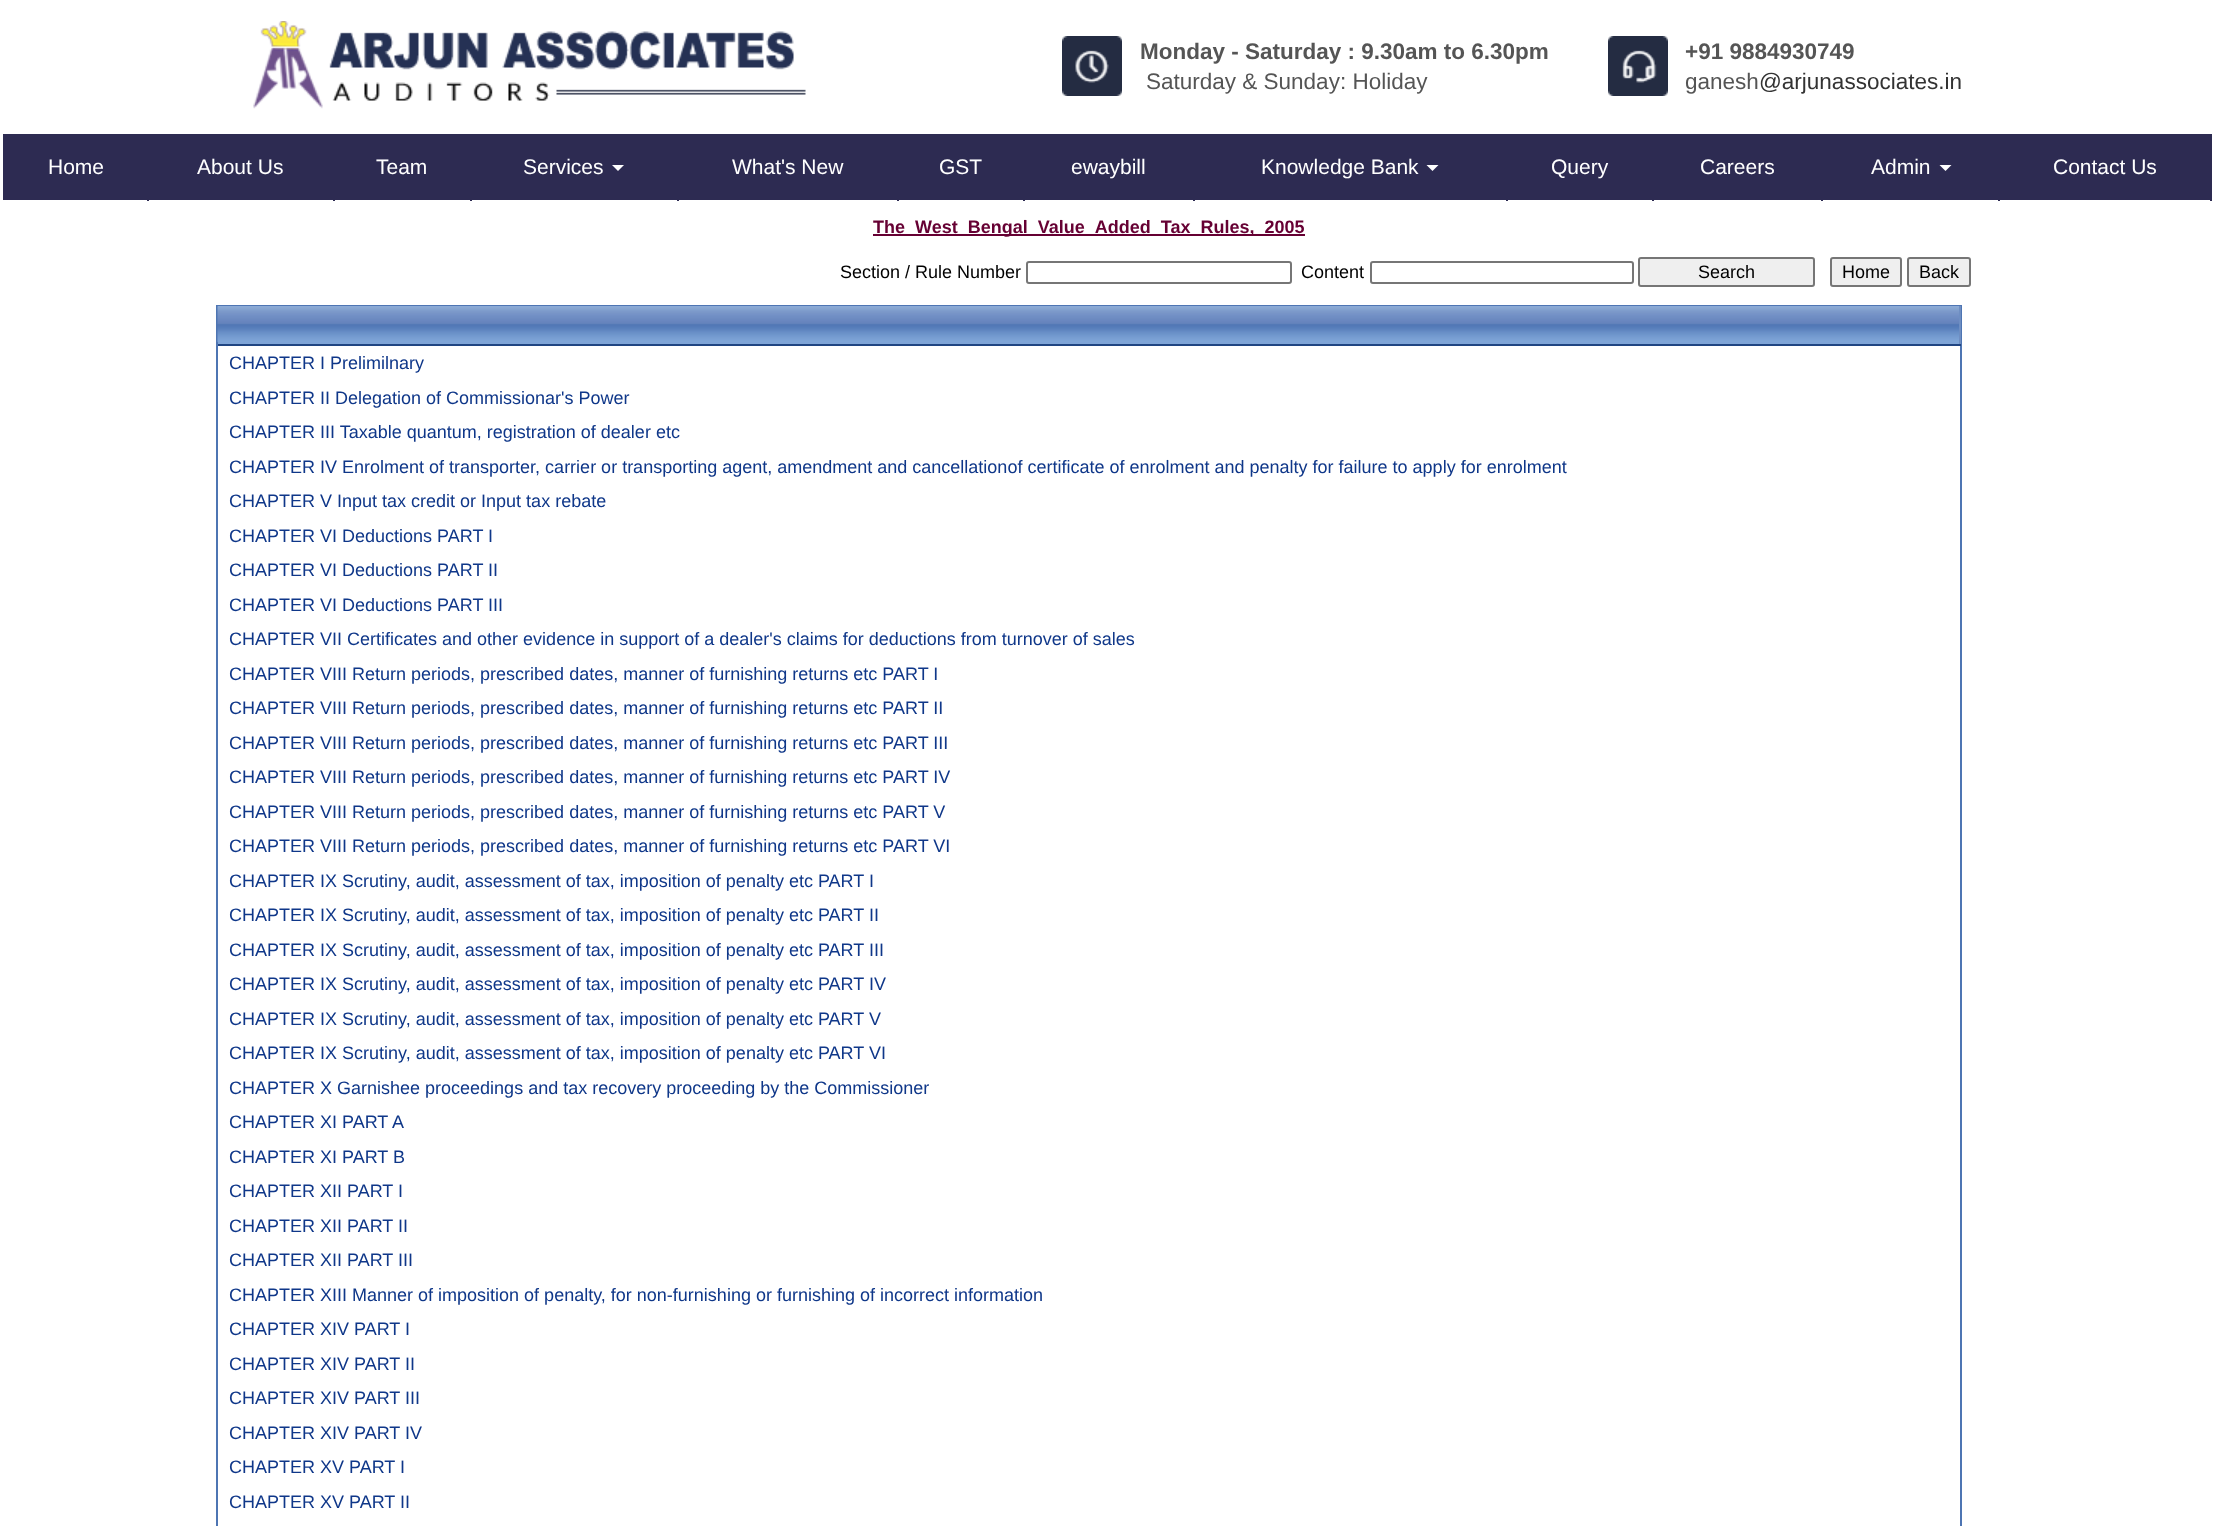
<?xml version="1.0" encoding="UTF-8"?>
<svg xmlns="http://www.w3.org/2000/svg" width="2213" height="1526">
    <rect width="100%" height="100%" fill="#FFFFFF"/>
    <image x="253" y="21" width="553" height="88" href="img_01.png"/>
    <image x="1062" y="36" width="60" height="60" href="img_02.png"/>
    <text x="1140" y="59" font-family="Liberation Sans" font-size="22.5" font-weight="700" fill="#555555">Monday - Saturday : 9.30am to 6.30pm</text>
    <text x="1146" y="89" font-family="Liberation Sans" font-size="22.5" fill="#555555">Saturday &amp; Sunday: Holiday</text>
    <image x="1608" y="36" width="60" height="60" href="img_03.png"/>
    <text x="1685" y="59" font-family="Liberation Sans" font-size="22.5" font-weight="700" fill="#555555">+91 9884930749</text>
    <text x="1685" y="89" font-family="Liberation Sans" font-size="22.5" fill="#555555">ganesh</text>
    <text x="1759" y="89" font-family="Liberation Sans" font-size="22.5" fill="#333333">@arjunassociates.in</text>
    <rect x="3" y="134" width="2207" height="66" fill="#2D2B52"/>
    <rect x="147" y="200" width="2" height="1" fill="#2D2B52"/>
    <text x="48" y="174" font-family="Liberation Sans" font-size="21" fill="#FFFFFF">Home</text>
    <rect x="333" y="200" width="2" height="1" fill="#2D2B52"/>
    <text x="197" y="174" font-family="Liberation Sans" font-size="21" fill="#FFFFFF">About Us</text>
    <rect x="470" y="200" width="2" height="1" fill="#2D2B52"/>
    <text x="376" y="174" font-family="Liberation Sans" font-size="21" fill="#FFFFFF">Team</text>
    <rect x="677" y="200" width="2" height="1" fill="#2D2B52"/>
    <text x="523" y="174" font-family="Liberation Sans" font-size="21" fill="#FFFFFF">Services</text>
    <path d="M 612 165 H 624 L 618 171 Z" fill="#FFFFFF"/>
    <rect x="897" y="200" width="2" height="1" fill="#2D2B52"/>
    <text x="732" y="174" font-family="Liberation Sans" font-size="21" fill="#FFFFFF">What's New</text>
    <rect x="1023" y="200" width="2" height="1" fill="#2D2B52"/>
    <text x="939" y="174" font-family="Liberation Sans" font-size="21" fill="#FFFFFF">GST</text>
    <rect x="1193" y="200" width="2" height="1" fill="#2D2B52"/>
    <text x="1071" y="174" font-family="Liberation Sans" font-size="21" fill="#FFFFFF">ewaybill</text>
    <rect x="1506" y="200" width="2" height="1" fill="#2D2B52"/>
    <text x="1261" y="174" font-family="Liberation Sans" font-size="21" fill="#FFFFFF">Knowledge Bank</text>
    <path d="M 1426.5 165 H 1438.5 L 1432.5 171 Z" fill="#FFFFFF"/>
    <rect x="1652" y="200" width="2" height="1" fill="#2D2B52"/>
    <text x="1551" y="174" font-family="Liberation Sans" font-size="21" fill="#FFFFFF">Query</text>
    <rect x="1821" y="200" width="2" height="1" fill="#2D2B52"/>
    <text x="1700" y="174" font-family="Liberation Sans" font-size="21" fill="#FFFFFF">Careers</text>
    <rect x="1998" y="200" width="2" height="1" fill="#2D2B52"/>
    <text x="1871" y="174" font-family="Liberation Sans" font-size="21" fill="#FFFFFF">Admin</text>
    <path d="M 1939.5 165 H 1951.5 L 1945.5 171 Z" fill="#FFFFFF"/>
    <rect x="2210" y="134" width="2" height="67" fill="#2D2B52"/>
    <text x="2053" y="174" font-family="Liberation Sans" font-size="21" fill="#FFFFFF">Contact Us</text>
    <rect x="873" y="234" width="432" height="2" fill="#660033"/>
    <text x="873" y="233" font-family="Liberation Sans" font-size="18" font-weight="700" fill="#660033">The_West_Bengal_Value_Added_Tax_Rules,_2005</text>
    <text x="840" y="278" font-family="Liberation Sans" font-size="18" fill="#000000">Section / Rule Number</text>
    <rect x="1027" y="262" width="264" height="21" rx="2" fill="none" stroke="#767676" stroke-width="2"/>
    <text x="1301" y="278" font-family="Liberation Sans" font-size="18" fill="#000000">Content</text>
    <rect x="1371" y="262" width="262" height="21" rx="2" fill="none" stroke="#767676" stroke-width="2"/>
    <rect x="1639" y="258" width="175" height="28" rx="2" fill="#EFEFEF" stroke="#767676" stroke-width="2"/>
    <text x="1698" y="278" font-family="Liberation Sans" font-size="18" fill="#000000">Search</text>
    <rect x="1831" y="258" width="70" height="28" rx="2" fill="#EFEFEF" stroke="#767676" stroke-width="2"/>
    <text x="1842" y="278" font-family="Liberation Sans" font-size="18" fill="#000000">Home</text>
    <rect x="1908" y="258" width="62" height="28" rx="2" fill="#EFEFEF" stroke="#767676" stroke-width="2"/>
    <text x="1919" y="278" font-family="Liberation Sans" font-size="18" fill="#000000">Back</text>
    <rect x="217" y="306" width="1744" height="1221" fill="none" stroke="#4E75B3" stroke-width="2"/>
    <rect x="218" y="306" width="1741" height="38" fill="#7FA5D7"/>
    <image x="217" y="306" width="1742" height="37" href="img_04.png"/>
    <rect x="1959" y="306" width="2" height="39" fill="#6E8EC2"/>
    <rect x="218" y="344" width="1743" height="2" fill="#204582"/>
    <text font-family="Liberation Sans" font-size="18" fill="#0F3789">
        <tspan x="229" y="369">CHAPTER I Prelimilnary</tspan>
        <tspan x="229" y="404">CHAPTER II Delegation of Commissionar's Power</tspan>
        <tspan x="229" y="438">CHAPTER III Taxable quantum, registration of dealer etc</tspan>
        <tspan x="229" y="473">CHAPTER IV Enrolment of transporter, carrier or transporting agent, amendment and cancellationof certificate of enrolment and penalty for failure to apply for enrolment</tspan>
        <tspan x="229" y="507">CHAPTER V Input tax credit or Input tax rebate</tspan>
        <tspan x="229" y="542">CHAPTER VI Deductions PART I</tspan>
        <tspan x="229" y="576">CHAPTER VI Deductions PART II</tspan>
        <tspan x="229" y="611">CHAPTER VI Deductions PART III</tspan>
        <tspan x="229" y="645">CHAPTER VII Certificates and other evidence in support of a dealer's claims for deductions from turnover of sales</tspan>
        <tspan x="229" y="680">CHAPTER VIII Return periods, prescribed dates, manner of furnishing returns etc PART I</tspan>
        <tspan x="229" y="714">CHAPTER VIII Return periods, prescribed dates, manner of furnishing returns etc PART II</tspan>
        <tspan x="229" y="749">CHAPTER VIII Return periods, prescribed dates, manner of furnishing returns etc PART III</tspan>
        <tspan x="229" y="783">CHAPTER VIII Return periods, prescribed dates, manner of furnishing returns etc PART IV</tspan>
        <tspan x="229" y="818">CHAPTER VIII Return periods, prescribed dates, manner of furnishing returns etc PART V</tspan>
        <tspan x="229" y="852">CHAPTER VIII Return periods, prescribed dates, manner of furnishing returns etc PART VI</tspan>
        <tspan x="229" y="887">CHAPTER IX Scrutiny, audit, assessment of tax, imposition of penalty etc PART I</tspan>
        <tspan x="229" y="921">CHAPTER IX Scrutiny, audit, assessment of tax, imposition of penalty etc PART II</tspan>
        <tspan x="229" y="956">CHAPTER IX Scrutiny, audit, assessment of tax, imposition of penalty etc PART III</tspan>
        <tspan x="229" y="990">CHAPTER IX Scrutiny, audit, assessment of tax, imposition of penalty etc PART IV</tspan>
        <tspan x="229" y="1025">CHAPTER IX Scrutiny, audit, assessment of tax, imposition of penalty etc PART V</tspan>
        <tspan x="229" y="1059">CHAPTER IX Scrutiny, audit, assessment of tax, imposition of penalty etc PART VI</tspan>
        <tspan x="229" y="1094">CHAPTER X Garnishee proceedings and tax recovery proceeding by the Commissioner</tspan>
        <tspan x="229" y="1128">CHAPTER XI PART A</tspan>
        <tspan x="229" y="1163">CHAPTER XI PART B</tspan>
        <tspan x="229" y="1197">CHAPTER XII PART I</tspan>
        <tspan x="229" y="1232">CHAPTER XII PART II</tspan>
        <tspan x="229" y="1266">CHAPTER XII PART III</tspan>
        <tspan x="229" y="1301">CHAPTER XIII Manner of imposition of penalty, for non-furnishing or furnishing of incorrect information</tspan>
        <tspan x="229" y="1335">CHAPTER XIV PART I</tspan>
        <tspan x="229" y="1370">CHAPTER XIV PART II</tspan>
        <tspan x="229" y="1404">CHAPTER XIV PART III</tspan>
        <tspan x="229" y="1439">CHAPTER XIV PART IV</tspan>
        <tspan x="229" y="1473">CHAPTER XV PART I</tspan>
        <tspan x="229" y="1508">CHAPTER XV PART II</tspan>
    </text>
</svg>
